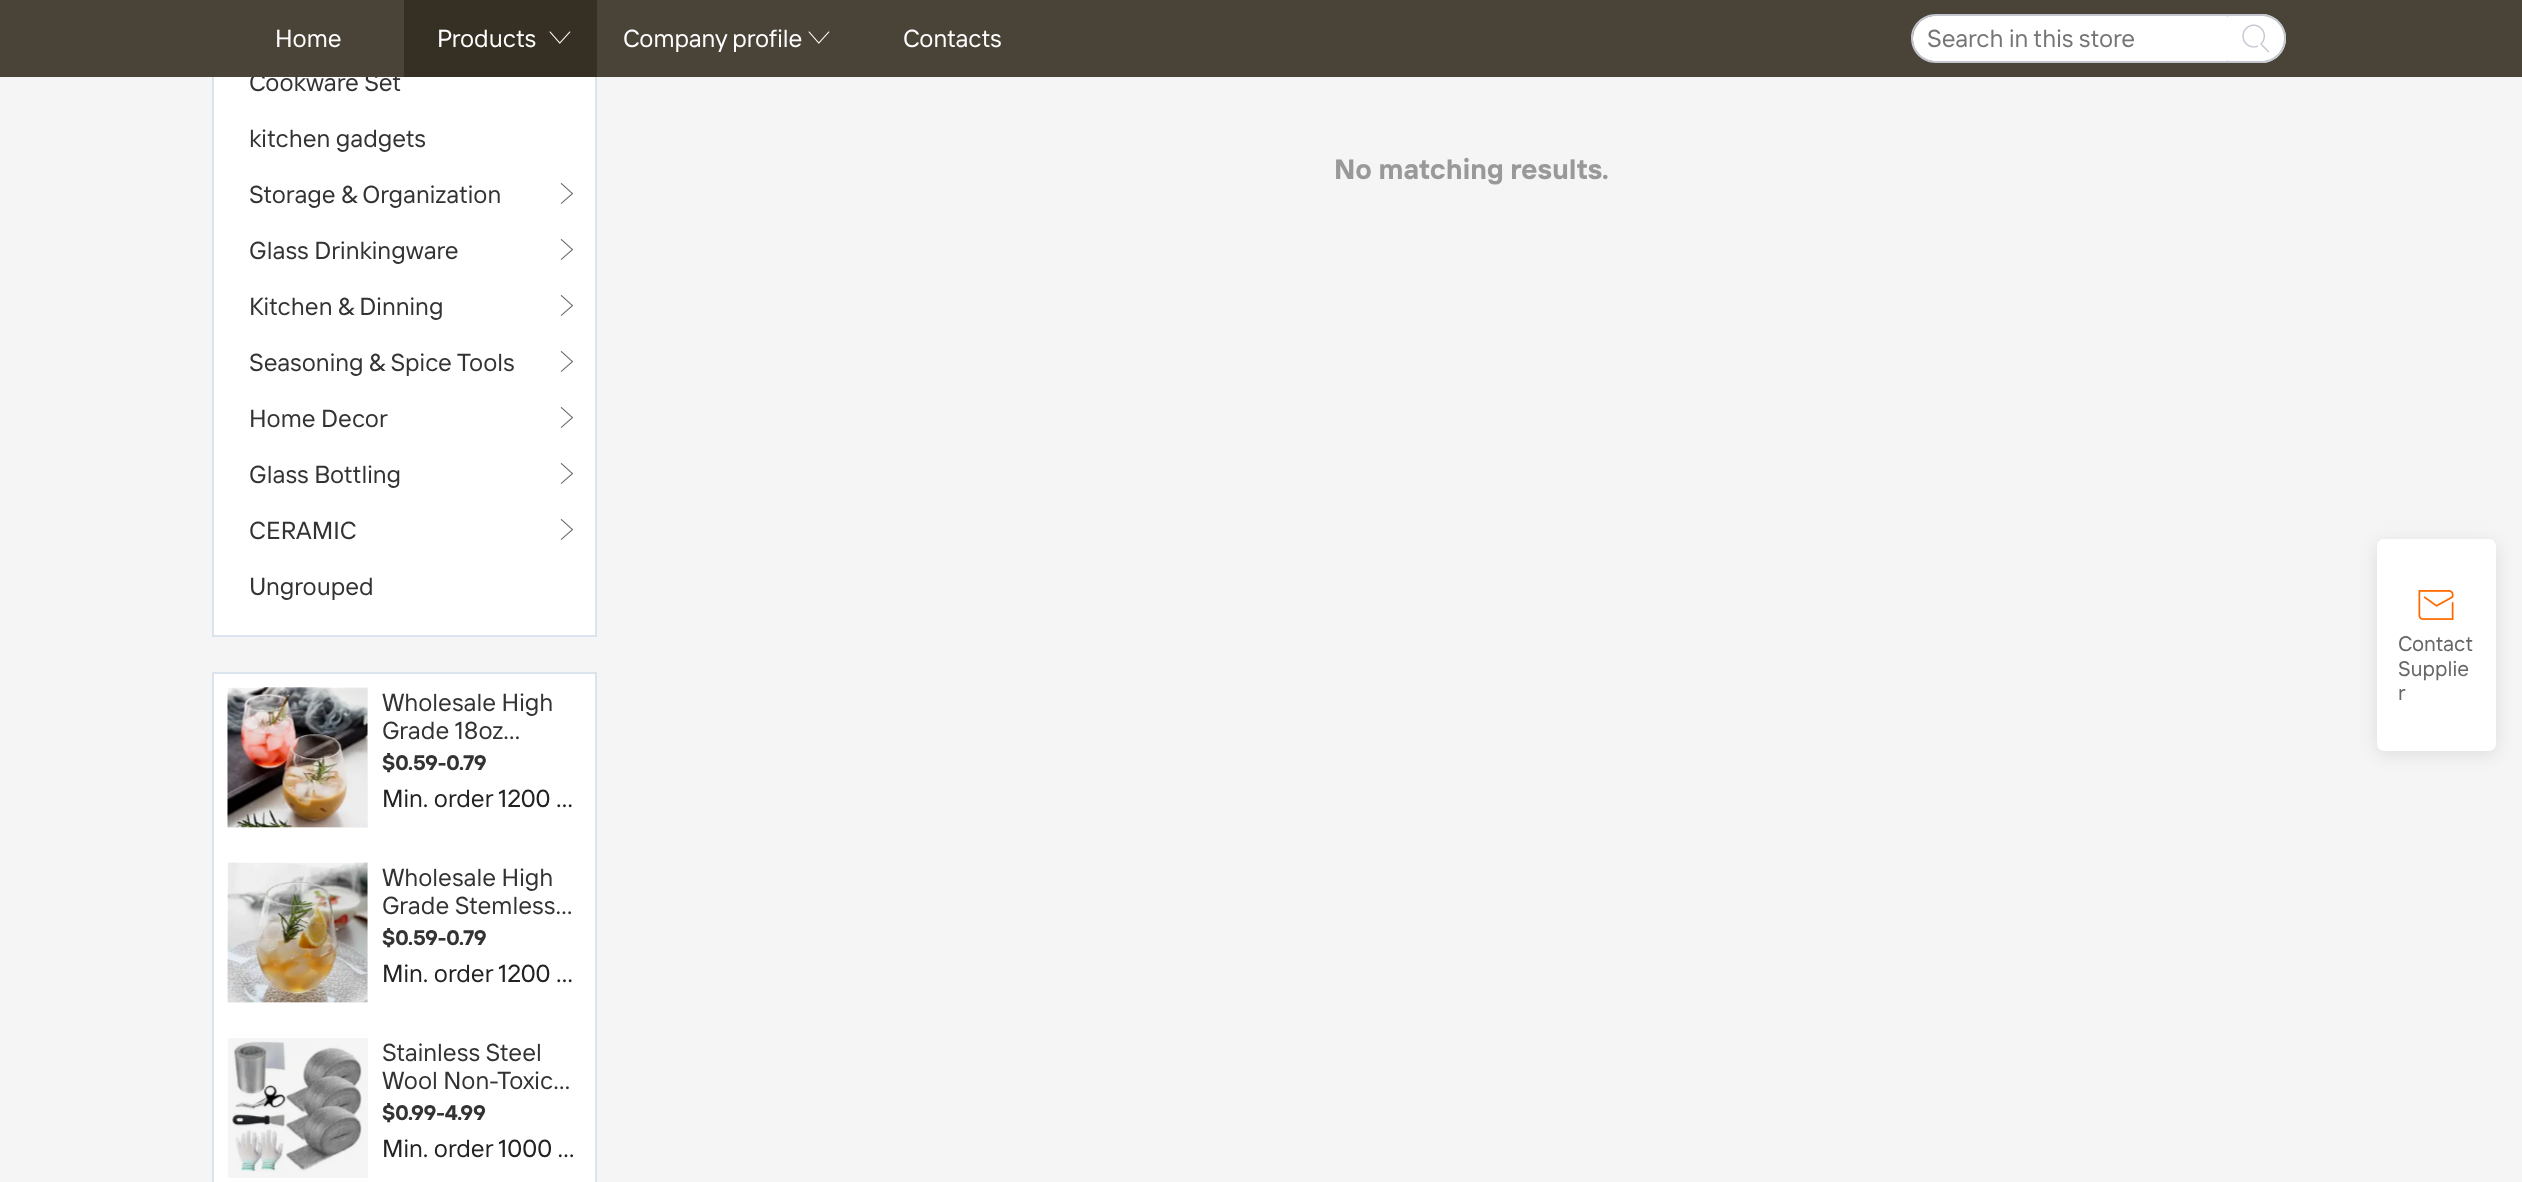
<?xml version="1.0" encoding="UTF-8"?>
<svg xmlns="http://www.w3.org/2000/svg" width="2522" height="1182">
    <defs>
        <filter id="blur1" x="-50%" y="-200%" width="200%" height="500%"><feGaussianBlur stdDeviation="9"/></filter>
    </defs>
    <rect width="100%" height="100%" fill="#F5F5F5"/>
    <rect x="214" y="628" width="381" height="7" fill="#FFFFFF"/>
    <rect x="214" y="33" width="381" height="602" rx="7" fill="#FFFFFF"/>
    <text x="249" y="91" font-family="'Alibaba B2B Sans'" font-size="24.5" fill="#333333">Cookware Set</text>
    <rect x="0" y="0" width="2522" height="77" fill="#4A4337"/>
    <text x="275" y="47" font-family="'Alibaba B2B Sans'" font-size="24.5" fill="#FFFFFF">Home</text>
    <rect x="404" y="0" width="193" height="77" fill="#362F23"/>
    <text x="437" y="47" font-family="'Alibaba B2B Sans'" font-size="24.5" fill="#FFFFFF">Products</text>
    <image x="549" y="31" width="22" height="13" href="img_01.png"/>
    <text x="623" y="47" font-family="'Alibaba B2B Sans'" font-size="24.5" fill="#FFFFFF">Company profile</text>
    <image x="808" y="31" width="22" height="13" href="img_02.png"/>
    <text x="903" y="47" font-family="'Alibaba B2B Sans'" font-size="24.5" fill="#FFFFFF">Contacts</text>
    <path d="M 1936 14 H 2228 V 63 H 1936 C 1922 63 1911 52 1911 38 C 1911 25 1922 14 1936 14 Z M 1936 16 H 2228 V 61 H 1936 C 1923 61 1913 51 1913 38 C 1913 26 1923 16 1936 16 Z" fill="#C4C6CF" fill-rule="evenodd"/>
    <path d="M 1935.5 16 H 2227 C 2227.5 16 2228 16.5 2228 17 V 60 C 2228 60.5 2227.5 61 2227 61 H 1935.5 C 1923 61 1913 51 1913 38.5 C 1913 26 1923 16 1935.5 16 Z" fill="#FFFFFF"/>
    <text x="1927" y="47" font-family="'Alibaba B2B Sans'" font-size="24.5" fill="#757575">Search in this store</text>
    <path d="M 2228 14 H 2261.5 C 2275 14 2286 25 2286 38.5 C 2286 52 2275 63 2261.5 63 H 2228 Z" fill="#FFFFFF"/>
    <path d="M 2228 14 H 2261 C 2275 14 2286 25 2286 38 C 2286 52 2275 63 2261 63 H 2228 Z M 2228 16 H 2261 C 2274 16 2284 26 2284 38 C 2284 51 2274 61 2261 61 H 2228 Z" fill="#C4C6CF" fill-rule="evenodd"/>
    <image x="2242" y="24" width="28" height="29" href="img_03.png"/>
    <rect x="595" y="77" width="2" height="560" fill="#DBE3EF"/>
    <rect x="212" y="635" width="385" height="2" fill="#DBE3EF"/>
    <rect x="212" y="77" width="2" height="560" fill="#DBE3EF"/>
    <text x="249" y="147" font-family="'Alibaba B2B Sans'" font-size="24.5" fill="#333333">kitchen gadgets</text>
    <text x="249" y="203" font-family="'Alibaba B2B Sans'" font-size="24.5" fill="#333333">Storage &amp; Organization</text>
    <image x="560" y="183" width="14" height="21" href="img_04.png"/>
    <text x="249" y="259" font-family="'Alibaba B2B Sans'" font-size="24.5" fill="#333333">Glass Drinkingware</text>
    <image x="560" y="239" width="14" height="21" href="img_04.png"/>
    <text x="249" y="315" font-family="'Alibaba B2B Sans'" font-size="24.5" fill="#333333">Kitchen &amp; Dinning</text>
    <image x="560" y="295" width="14" height="21" href="img_04.png"/>
    <text x="249" y="371" font-family="'Alibaba B2B Sans'" font-size="24.5" fill="#333333">Seasoning &amp; Spice Tools</text>
    <image x="560" y="351" width="14" height="21" href="img_04.png"/>
    <text x="249" y="427" font-family="'Alibaba B2B Sans'" font-size="24.5" fill="#333333">Home Decor</text>
    <image x="560" y="407" width="14" height="21" href="img_04.png"/>
    <text x="249" y="483" font-family="'Alibaba B2B Sans'" font-size="24.5" fill="#333333">Glass Bottling</text>
    <image x="560" y="463" width="14" height="21" href="img_04.png"/>
    <text x="249" y="539" font-family="'Alibaba B2B Sans'" font-size="24.5" fill="#333333">CERAMIC</text>
    <image x="560" y="519" width="14" height="21" href="img_04.png"/>
    <text x="249" y="595" font-family="'Alibaba B2B Sans'" font-size="24.5" fill="#333333">Ungrouped</text>
    <rect x="213" y="673" width="383" height="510" fill="#FFFFFF" stroke="#DBE3EF" stroke-width="2"/>
    <image x="227" y="687" width="141" height="141" href="img_05.png"/>
    <rect x="228" y="688" width="140" height="140" fill="#000000" fill-opacity="0.04"/>
    <text font-family="'Alibaba B2B Sans'" font-size="24.5" fill="#333333">
        <tspan x="382" y="711">Wholesale High</tspan>
        <tspan x="382" y="739">Grade 18oz…</tspan>
    </text>
    <text x="382" y="770" font-family="'Alibaba B2B Sans'" font-size="21" font-weight="700" fill="#333333">$0.59-0.79</text>
    <text x="382" y="807" font-family="'Alibaba B2B Sans'" font-size="24.5" fill="#222222">Min. order 1200 …</text>
    <image x="227" y="862" width="141" height="141" href="img_06.png"/>
    <rect x="228" y="863" width="140" height="140" fill="#000000" fill-opacity="0.04"/>
    <text font-family="'Alibaba B2B Sans'" font-size="24.5" fill="#333333">
        <tspan x="382" y="886">Wholesale High</tspan>
        <tspan x="382" y="914">Grade Stemless…</tspan>
    </text>
    <text x="382" y="945" font-family="'Alibaba B2B Sans'" font-size="21" font-weight="700" fill="#333333">$0.59-0.79</text>
    <text x="382" y="982" font-family="'Alibaba B2B Sans'" font-size="24.5" fill="#222222">Min. order 1200 …</text>
    <image x="232" y="1041" width="130" height="131" href="img_07.png"/>
    <rect x="228" y="1038" width="140" height="140" fill="#000000" fill-opacity="0.04"/>
    <text font-family="'Alibaba B2B Sans'" font-size="24.5" fill="#333333">
        <tspan x="382" y="1061">Stainless Steel</tspan>
        <tspan x="382" y="1089">Wool Non-Toxic…</tspan>
    </text>
    <text x="382" y="1120" font-family="'Alibaba B2B Sans'" font-size="21" font-weight="700" fill="#333333">$0.99-4.99</text>
    <text x="382" y="1157" font-family="'Alibaba B2B Sans'" font-size="24.5" fill="#222222">Min. order 1000 …</text>
    <text x="1334" y="179" font-family="'Alibaba B2B Sans'" font-size="28" font-weight="700" fill="#999999">No matching results.</text>
    <rect x="2377" y="543" width="119" height="211" rx="7" fill="#000000" fill-opacity="0.1" filter="url(#blur1)"/>
    <rect x="2377" y="539" width="119" height="212" rx="7" fill="#FFFFFF"/>
    <image x="2418" y="590" width="36" height="30" href="img_08.png"/>
    <text font-family="'Alibaba B2B Sans'" font-size="21" fill="#666666">
        <tspan x="2398" y="651">Contact</tspan>
        <tspan x="2398" y="676">Supplie</tspan>
        <tspan x="2398" y="700">r</tspan>
    </text>
</svg>
